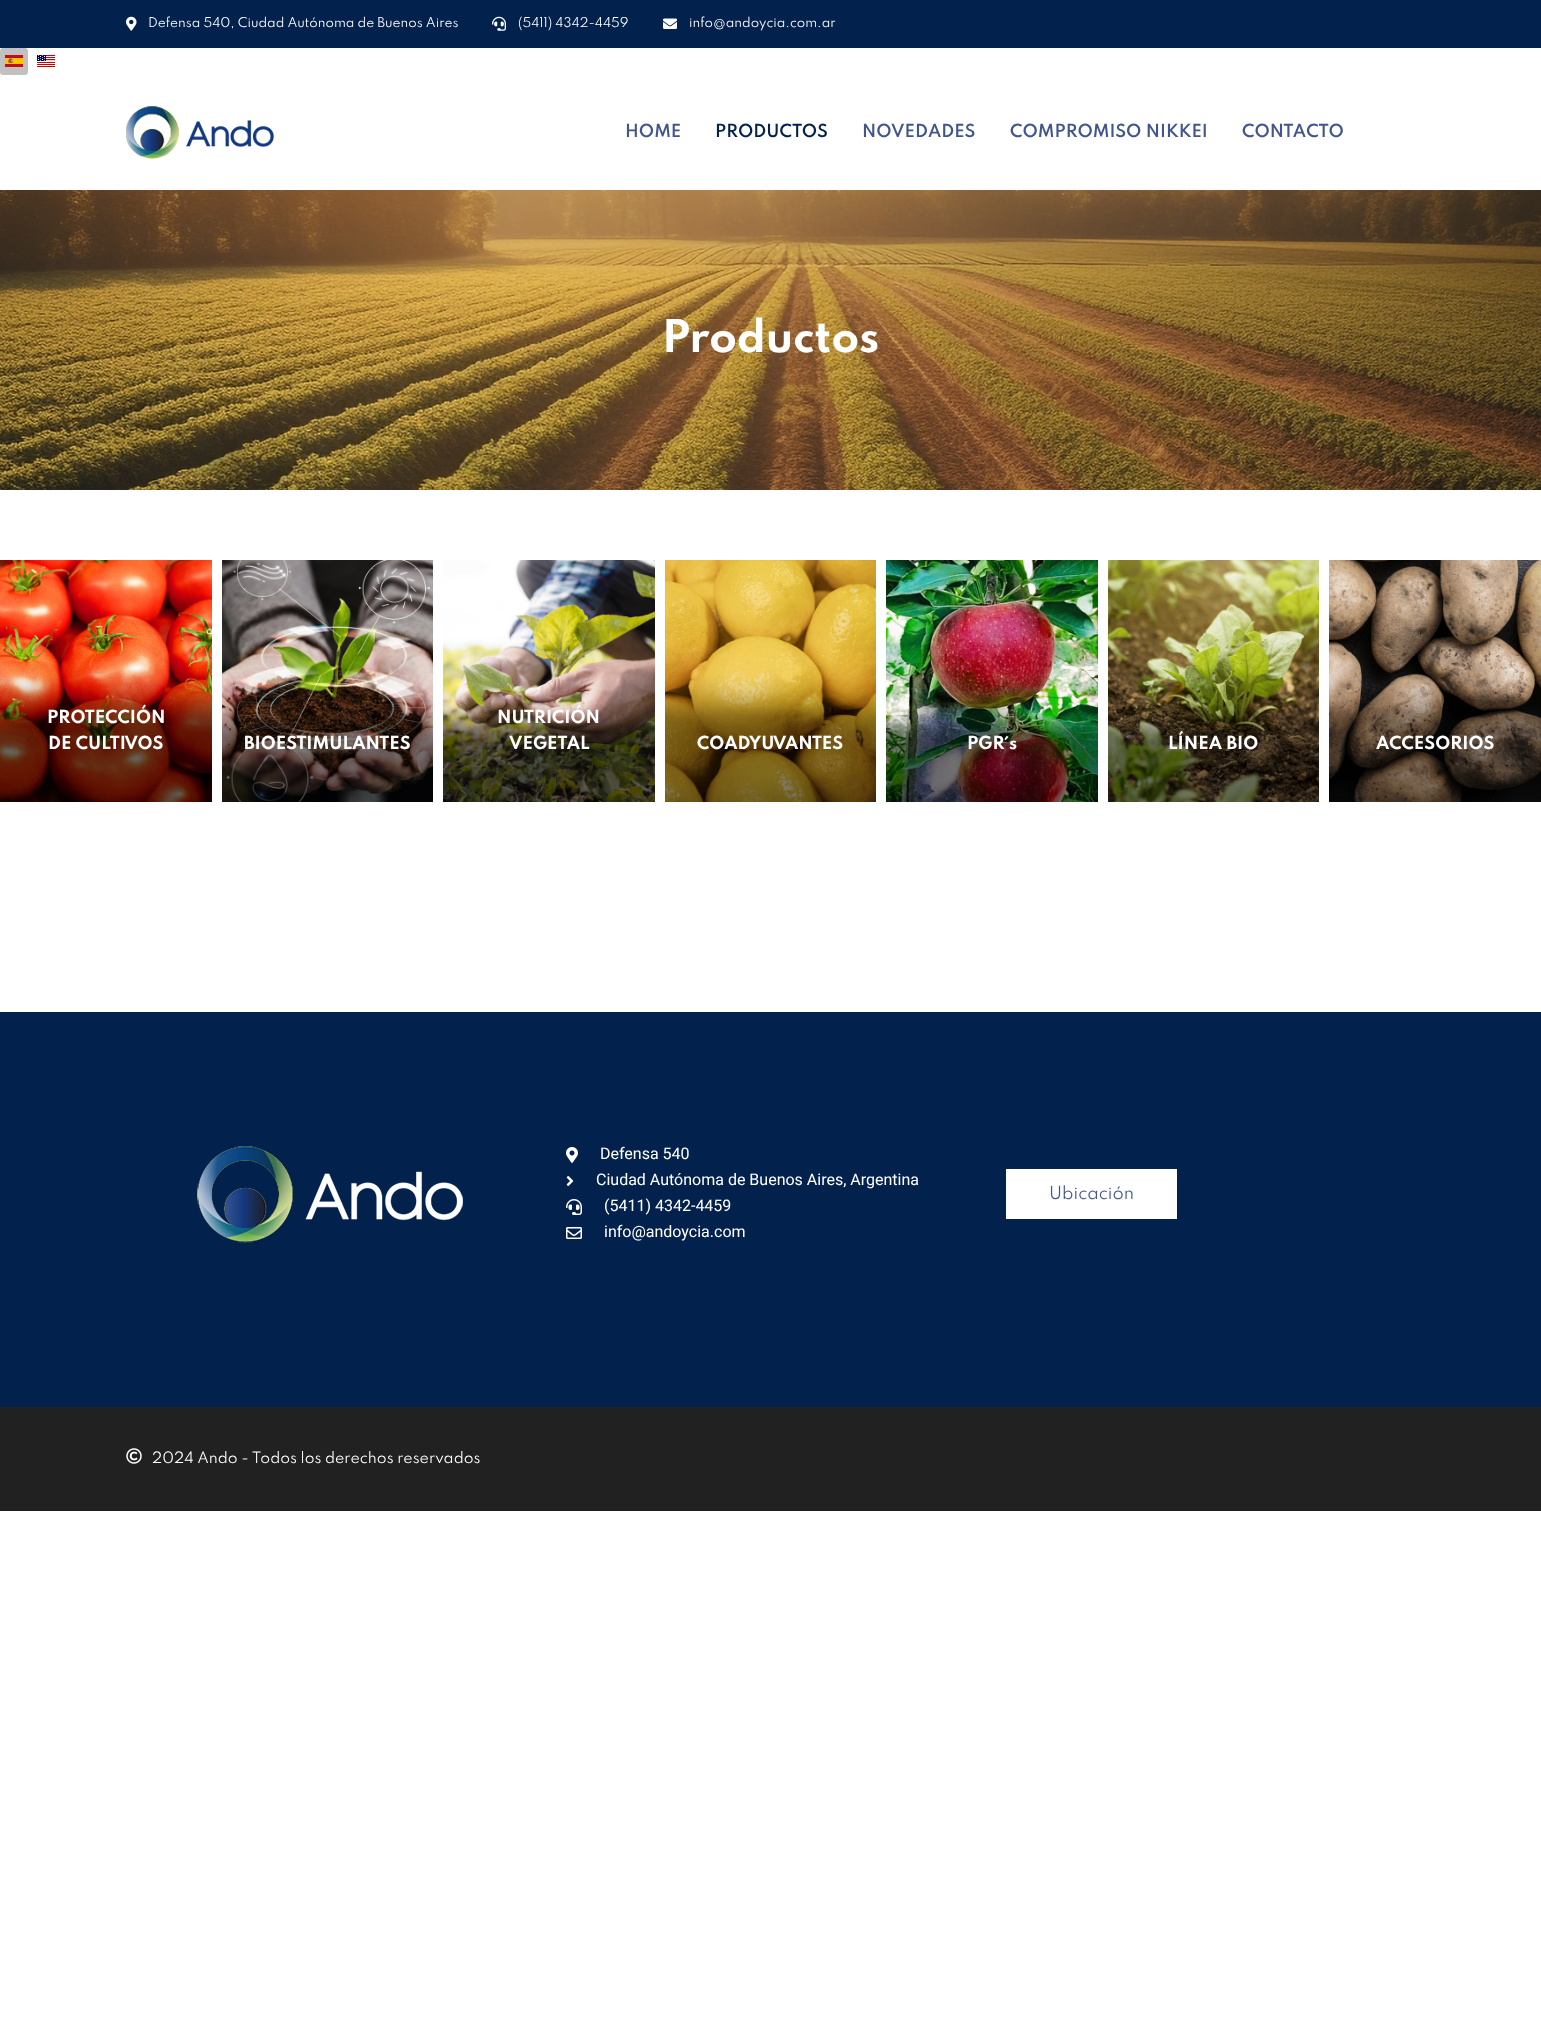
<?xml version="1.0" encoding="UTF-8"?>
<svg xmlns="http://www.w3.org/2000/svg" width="1541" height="2036">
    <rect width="100%" height="100%" fill="#FFFFFF"/>
    <rect x="0" y="0" width="1541" height="48" fill="#02224D"/>
    <image x="126" y="16" width="11" height="15" href="img_01.png"/>
    <text x="148" y="27" font-family="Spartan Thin" font-size="12" fill="#FFFFFF">Defensa 540, Ciudad Autónoma de Buenos Aires</text>
    <image x="492" y="16" width="14" height="15" href="img_02.png"/>
    <text x="518" y="27" font-family="Spartan Thin" font-size="12" fill="#FFFFFF">(5411) 4342-4459</text>
    <image x="663" y="18" width="14" height="11" href="img_03.png"/>
    <text x="689" y="27" font-family="Spartan Thin" font-size="12" fill="#FFFFFF">info@andoycia.com.ar</text>
    <rect x="0" y="48" width="28" height="27" rx="3" fill="#C1C1C1"/>
    <image x="5" y="55" width="18" height="12" href="img_04.png"/>
    <image x="37" y="55" width="18" height="12" href="img_05.png"/>
    <image x="126" y="106" width="148" height="53" href="img_06.png"/>
    <text x="625" y="137" font-family="Spartan Thin" font-size="16" font-weight="600" fill="#42558C">HOME</text>
    <text x="715" y="137" font-family="Spartan Thin" font-size="16" font-weight="600" fill="#02224D">PRODUCTOS</text>
    <text x="862" y="137" font-family="Spartan Thin" font-size="16" font-weight="600" fill="#42558C">NOVEDADES</text>
    <text x="1010" y="137" font-family="Spartan Thin" font-size="16" font-weight="600" fill="#42558C">COMPROMISO NIKKEI</text>
    <text x="1242" y="137" font-family="Spartan Thin" font-size="16" font-weight="600" fill="#42558C">CONTACTO</text>
    <image x="0" y="190" width="1541" height="300" href="img_07.png"/>
    <text x="662" y="352" font-family="Spartan Thin" font-size="40" font-weight="700" fill="#FFFFFF">Productos</text>
    <image x="0" y="560" width="212" height="242" href="img_08.png"/>
    <text x="47" y="723" font-family="Spartan Thin" font-size="16" font-weight="700" fill="#FFFFFF">PROTECCIÓN</text>
    <text x="48" y="749" font-family="Spartan Thin" font-size="16" font-weight="700" fill="#FFFFFF">DE CULTIVOS</text>
    <image x="222" y="560" width="211" height="242" href="img_09.png"/>
    <text x="244" y="749" font-family="Spartan Thin" font-size="16" font-weight="700" fill="#FFFFFF">BIOESTIMULANTES</text>
    <image x="443" y="560" width="212" height="242" href="img_10.png"/>
    <text x="497" y="723" font-family="Spartan Thin" font-size="16" font-weight="700" fill="#FFFFFF">NUTRICIÓN</text>
    <text x="509" y="749" font-family="Spartan Thin" font-size="16" font-weight="700" fill="#FFFFFF">VEGETAL</text>
    <image x="665" y="560" width="211" height="242" href="img_11.png"/>
    <text x="697" y="749" font-family="Spartan Thin" font-size="16" font-weight="700" fill="#FFFFFF">COADYUVANTES</text>
    <image x="886" y="560" width="212" height="242" href="img_12.png"/>
    <text x="967" y="749" font-family="Spartan Thin" font-size="16" font-weight="700" fill="#FFFFFF">PGR´s</text>
    <image x="1108" y="560" width="211" height="242" href="img_13.png"/>
    <text x="1168" y="749" font-family="Spartan Thin" font-size="16" font-weight="700" fill="#FFFFFF">LÍNEA BIO</text>
    <image x="1329" y="560" width="212" height="242" href="img_14.png"/>
    <text x="1376" y="749" font-family="Spartan Thin" font-size="16" font-weight="700" fill="#FFFFFF">ACCESORIOS</text>
    <rect x="0" y="1012" width="1541" height="395" fill="#02224D"/>
    <image x="197" y="1146" width="266" height="97" href="img_15.png"/>
    <image x="566" y="1147" width="12" height="16" href="img_16.png"/>
    <text x="600" y="1159" font-family="Roboto" font-size="16" fill="#FFFFFF">Defensa 540</text>
    <image x="566" y="1176" width="8" height="10" href="img_17.png"/>
    <text x="596" y="1185" font-family="Roboto" font-size="16" fill="#FFFFFF">Ciudad Autónoma de Buenos Aires, Argentina</text>
    <image x="566" y="1199" width="16" height="16" href="img_18.png"/>
    <text x="604" y="1211" font-family="Roboto" font-size="16" fill="#FFFFFF">(5411) 4342-4459</text>
    <image x="566" y="1227" width="16" height="12" href="img_19.png"/>
    <text x="604" y="1237" font-family="Roboto" font-size="16" fill="#FFFFFF">info@andoycia.com</text>
    <rect x="1006" y="1169" width="171" height="50" fill="#FFFFFF"/>
    <text x="1049" y="1199" font-family="Spartan Thin" font-size="16" fill="#42558C">Ubicación</text>
    <rect x="0" y="1407" width="1541" height="104" fill="#212121"/>
    <image x="126" y="1448" width="16" height="16" href="img_20.png"/>
    <text x="152" y="1463" font-family="Spartan Thin" font-size="14" fill="#FFFFFF">2024 Ando - Todos los derechos reservados</text>
</svg>
